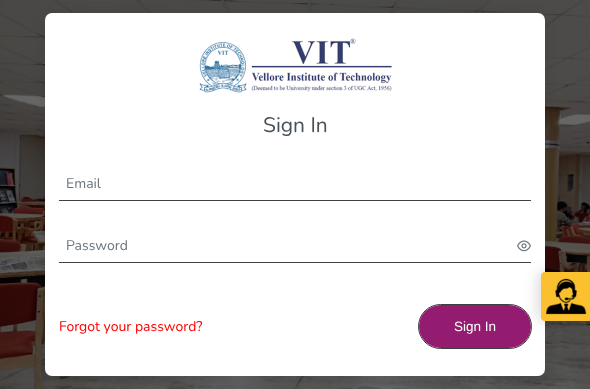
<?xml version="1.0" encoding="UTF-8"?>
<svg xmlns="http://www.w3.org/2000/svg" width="590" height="389">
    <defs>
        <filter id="blur1" x="-50%" y="-200%" width="200%" height="500%"><feGaussianBlur stdDeviation="7.5"/></filter>
        <filter id="blur2" x="-50%" y="-200%" width="200%" height="500%"><feGaussianBlur stdDeviation="7"/></filter>
    </defs>
    <rect width="100%" height="100%" fill="#FFFFFF"/>
    <image x="0" y="0" width="590" height="389" href="img_01.png"/>
    <rect x="45" y="13" width="500" height="363" rx="7" fill="#000000" fill-opacity="0.1" filter="url(#blur1)"/>
    <rect x="45" y="13" width="500" height="363" rx="7" fill="#FFFFFF"/>
    <image x="199" y="38" width="193" height="55" href="img_02.png"/>
    <text x="263" y="132" font-family="Nunito" font-size="21" fill="#495057">Sign In</text>
    <rect x="59" y="200" width="472" height="1" fill="#404040"/>
    <text x="66" y="188" font-family="Nunito" font-size="14" fill="#6C757D">Email</text>
    <rect x="59" y="262" width="472" height="1" fill="#404040"/>
    <text x="66" y="250" font-family="Nunito" font-size="14" fill="#6C757D">Password</text>
    <image x="517" y="240" width="14" height="12" href="img_03.png"/>
    <text x="59" y="331" font-family="Nunito" font-size="14" fill="#FF0000">Forgot your password?</text>
    <rect x="418.5" y="304.5" width="113" height="44" rx="22" fill="none" stroke="#404040"/>
    <rect x="419" y="305" width="112" height="43" rx="21.5" fill="#941C70"/>
    <text x="454" y="331" font-family="Liberation Sans" font-size="13.5" fill="#FFFFFF">Sign In</text>
    <rect x="538" y="272" width="49" height="49" rx="4" fill="#000000" fill-opacity="0.15" filter="url(#blur2)"/>
    <path d="M 545 272 H 590 V 321 H 545 C 543 321 541 319 541 317 V 276 C 541 274 543 272 545 272 Z" fill="#FBC02D"/>
    <path d="M 545 272 H 590 V 321 H 545 C 543 321 541 319 541 317 V 276 C 541 274 543 272 545 272 Z M 545 273 H 590 V 320 H 545 C 543 320 542 319 542 317 V 276 C 542 274 543 273 545 273 Z" fill="#FBC02D" fill-rule="evenodd"/>
    <image x="545" y="278" width="42" height="37" href="img_04.png"/>
</svg>
